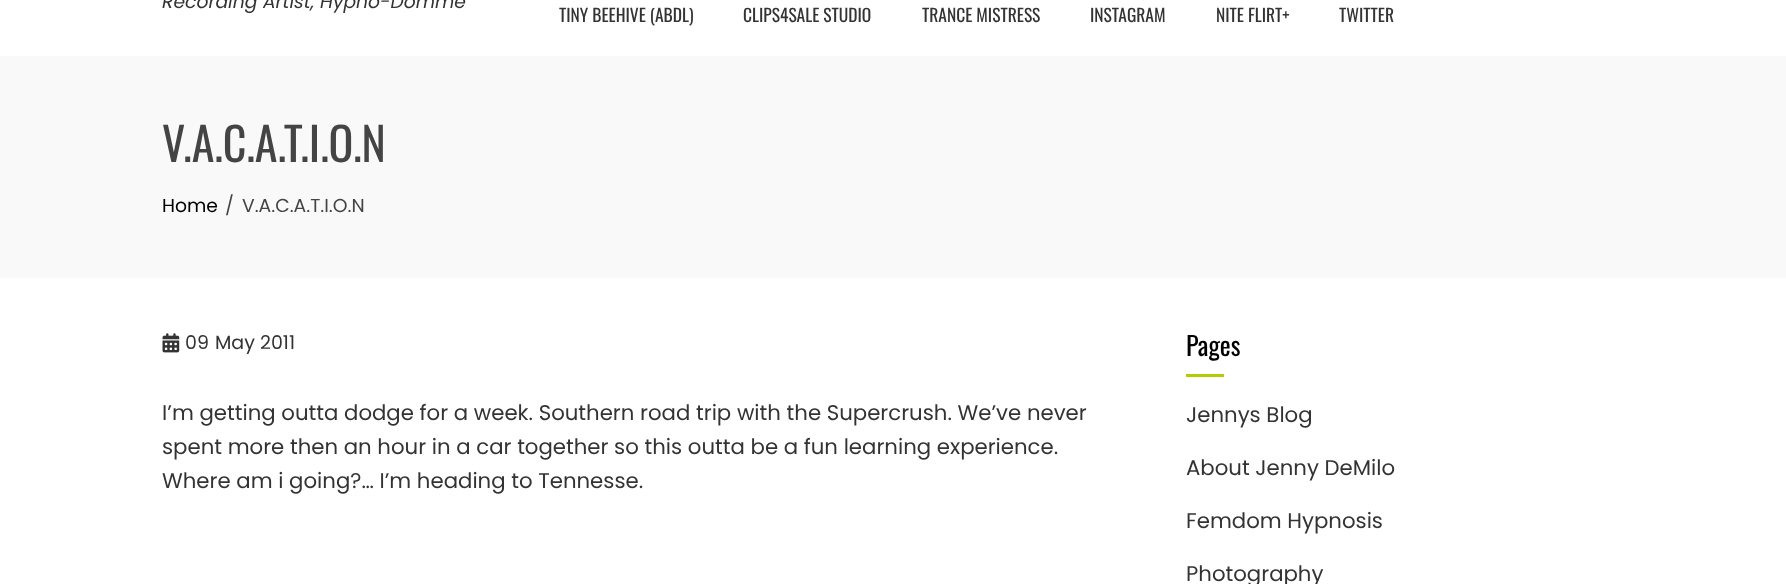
<?xml version="1.0" encoding="UTF-8"?>
<svg xmlns="http://www.w3.org/2000/svg" width="1786" height="584">
    <rect width="100%" height="100%" fill="#FFFFFF"/>
    <text x="162" y="8" font-family="Poppins" font-size="18.75" font-style="italic" fill="#333333">Recording Artist, Hypno-Domme</text>
    <text x="559" y="22" font-family="Oswald" font-size="17.5" fill="#333333">TINY BEEHIVE (ABDL)</text>
    <text x="743" y="22" font-family="Oswald" font-size="17.5" fill="#333333">CLIPS4SALE STUDIO</text>
    <text x="922" y="22" font-family="Oswald" font-size="17.5" fill="#333333">TRANCE MISTRESS</text>
    <text x="1090" y="22" font-family="Oswald" font-size="17.5" fill="#333333">INSTAGRAM</text>
    <text x="1216" y="22" font-family="Oswald" font-size="17.5" fill="#333333">NITE FLIRT+</text>
    <text x="1339" y="22" font-family="Oswald" font-size="17.5" fill="#333333">TWITTER</text>
    <rect x="0" y="56" width="1786" height="222" fill="#F9F9F9"/>
    <text x="162" y="162" font-family="Oswald" font-size="46" fill="#444444">V.A.C.A.T.I.O.N</text>
    <text x="162" y="212" font-family="Poppins" font-size="18.75" fill="#000000">Home</text>
    <text x="225" y="212" font-family="Poppins" font-size="18.75" fill="#444444">/</text>
    <text x="242" y="212" font-family="Poppins" font-size="18.75" fill="#444444">V.A.C.A.T.I.O.N</text>
    <image x="162" y="333" width="18" height="20" href="img_01.png"/>
    <text x="185" y="349" font-family="Poppins" font-size="19" fill="#333333">09</text>
    <text x="215" y="349" font-family="Poppins" font-size="19" fill="#333333">May 2011</text>
    <text font-family="Poppins" font-size="21.25" fill="#333333">
        <tspan x="162" y="420">I’m getting outta dodge for a week. Southern road trip with the Supercrush. We’ve never</tspan>
        <tspan x="162" y="454">spent more then an hour in a car together so this outta be a fun learning experience.</tspan>
        <tspan x="162" y="488">Where am i going?… I’m heading to Tennesse.</tspan>
    </text>
    <text x="1186" y="356" font-family="Oswald" font-size="26" fill="#000000">Pages</text>
    <rect x="1186" y="374" width="38" height="3" fill="#B4CC00"/>
    <text x="1186" y="422" font-family="Poppins" font-size="21.25" fill="#333333">Jennys Blog</text>
    <text x="1186" y="475" font-family="Poppins" font-size="21.25" fill="#333333">About Jenny DeMilo</text>
    <text x="1186" y="528" font-family="Poppins" font-size="21.25" fill="#333333">Femdom Hypnosis</text>
    <text x="1186" y="581" font-family="Poppins" font-size="21.25" fill="#333333">Photography</text>
</svg>
